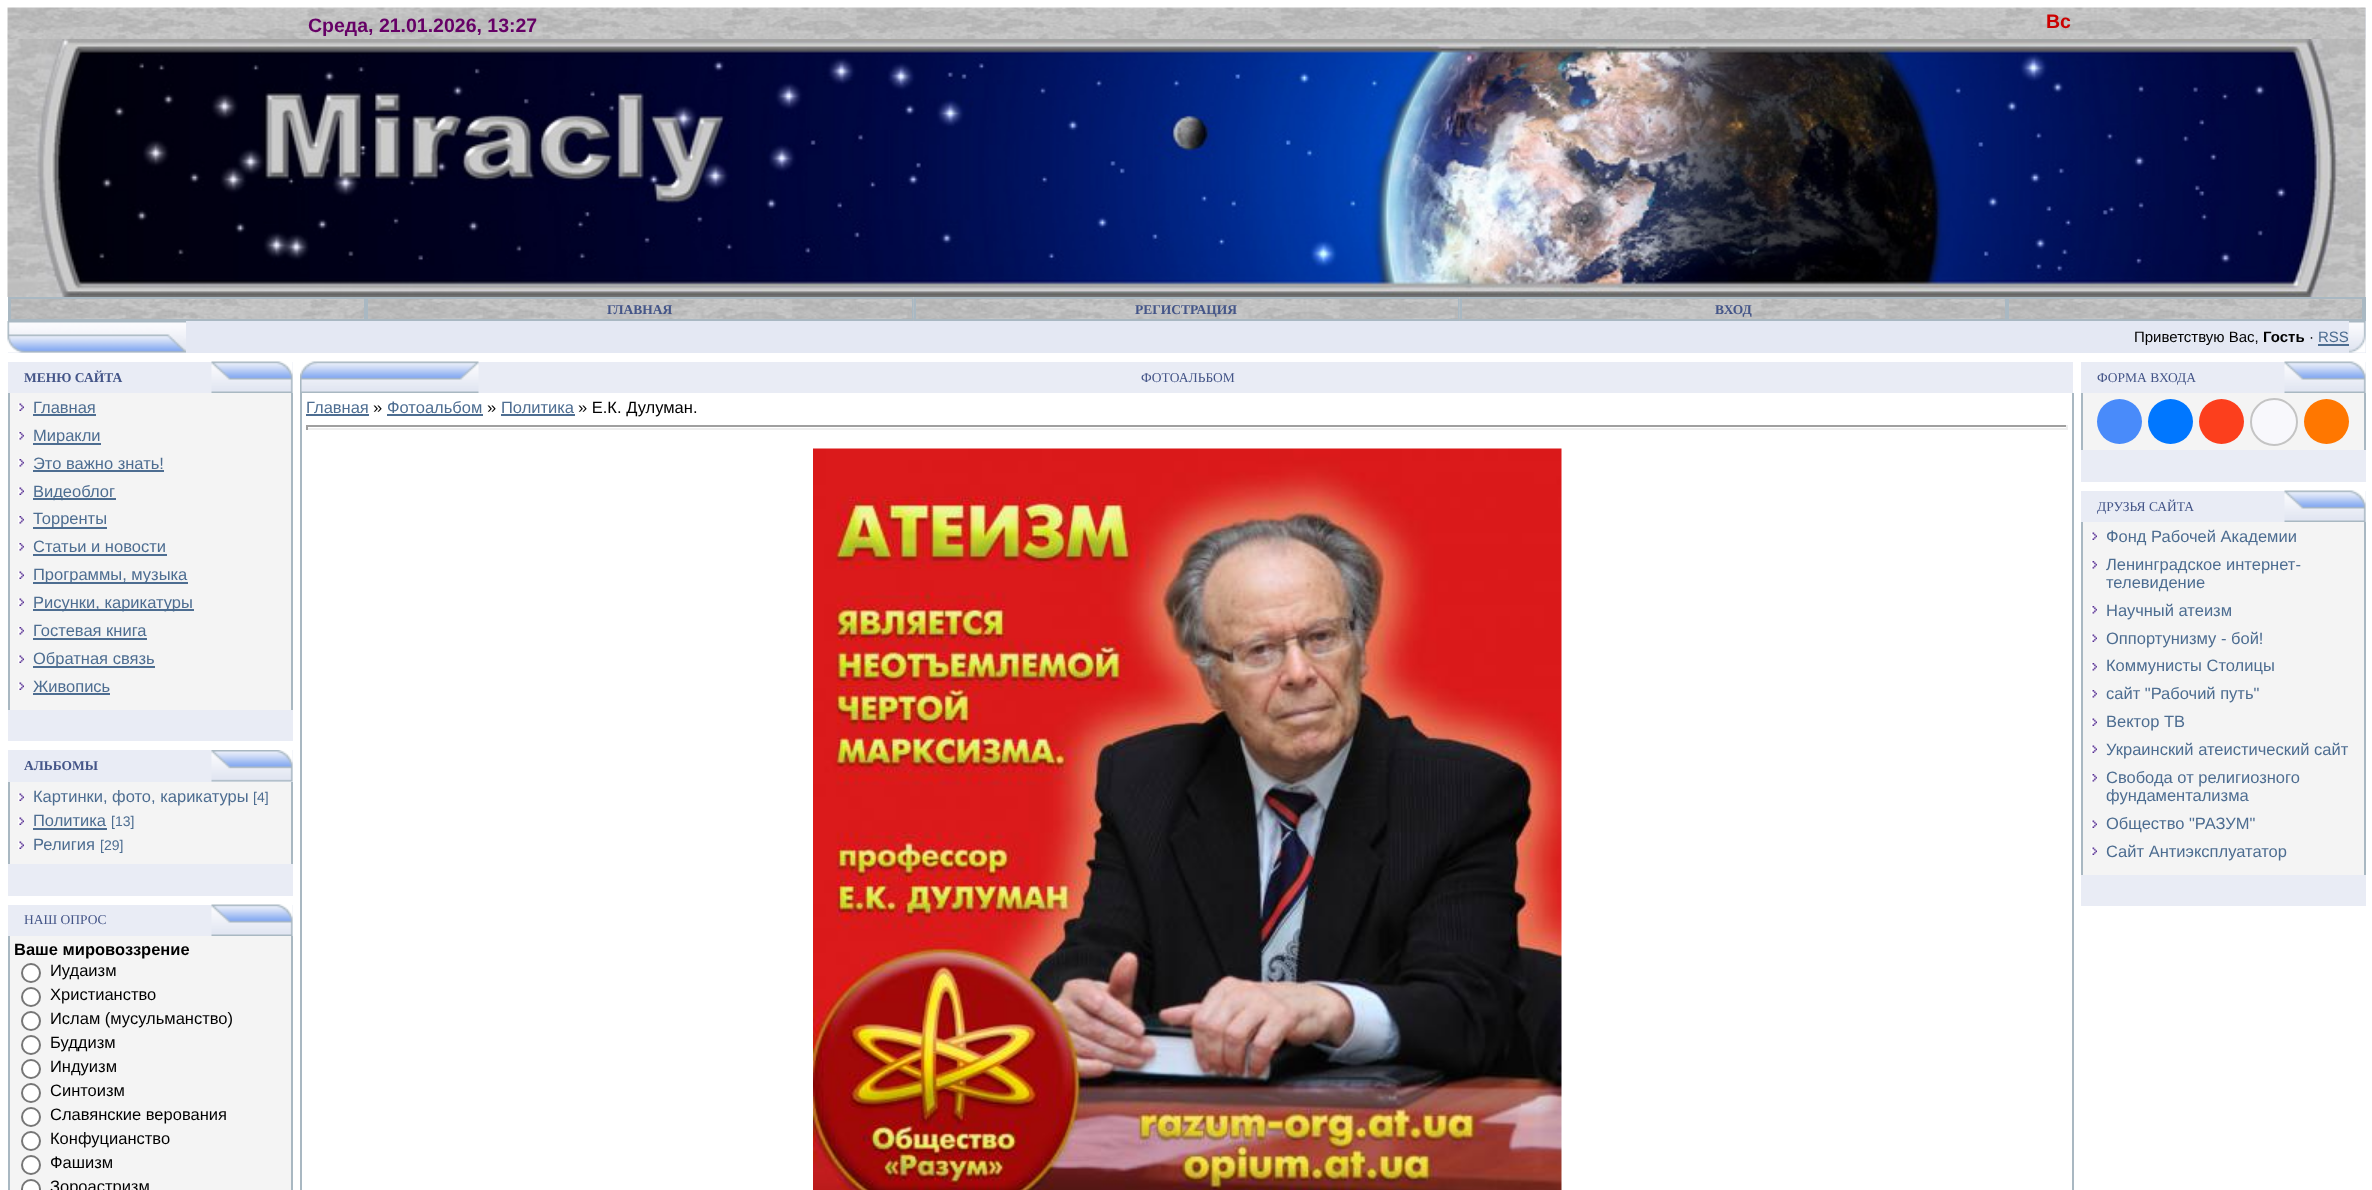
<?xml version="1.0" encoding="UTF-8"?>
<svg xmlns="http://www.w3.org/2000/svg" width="2372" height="1190">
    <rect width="100%" height="100%" fill="#FFFFFF"/>
    <rect x="2365" y="8" width="1" height="31" fill="#E4E8F3"/>
    <image x="7" y="7" width="2359" height="32" href="img_01.png"/>
    <text x="308" y="32" font-family="Liberation Sans" font-size="19.5" font-weight="700" fill="#660066">Среда, 21.01.2026, 13:27</text>
    <text x="2046" y="28" font-family="Liberation Sans" font-size="19.5" font-weight="700" fill="#CC0000">Вс</text>
    <image x="7" y="39" width="2359" height="258" href="img_02.png"/>
    <rect x="2364" y="297" width="2" height="24" fill="#A9B8C2"/>
    <rect x="8" y="297" width="1" height="24" fill="#A9B8C2"/>
    <image x="11" y="299" width="353" height="20" href="img_03.png"/>
    <rect x="10" y="298" width="355" height="22" fill="none" stroke="#A9B8C2" stroke-width="2"/>
    <image x="368" y="299" width="544" height="20" href="img_04.png"/>
    <rect x="367" y="298" width="546" height="22" fill="none" stroke="#A9B8C2" stroke-width="2"/>
    <text x="607" y="314" font-family="Liberation Serif" font-size="13.5" font-weight="700" fill="#445588">ГЛАВНАЯ</text>
    <image x="913" y="297" width="545" height="24" href="img_05.png"/>
    <rect x="915" y="298" width="544" height="22" fill="none" stroke="#A9B8C2" stroke-width="2"/>
    <text x="1135" y="314" font-family="Liberation Serif" font-size="13.5" font-weight="700" fill="#445588">РЕГИСТРАЦИЯ</text>
    <image x="1459" y="297" width="546" height="24" href="img_06.png"/>
    <rect x="1461" y="298" width="545" height="22" fill="none" stroke="#A9B8C2" stroke-width="2"/>
    <text x="1715" y="314" font-family="Liberation Serif" font-size="13.5" font-weight="700" fill="#445588">ВХОД</text>
    <image x="2009" y="299" width="353" height="20" href="img_07.png"/>
    <rect x="2008" y="298" width="355" height="22" fill="none" stroke="#A9B8C2" stroke-width="2"/>
    <rect x="8" y="352" width="178" height="1" fill="#E4E8F3"/>
    <image x="7" y="321" width="179" height="32" href="img_08.png"/>
    <rect x="186" y="321" width="2180" height="32" fill="#E4E8F3"/>
    <text x="2134" y="342" font-family="Liberation Sans" font-size="15" fill="#000000">Приветствую Вас,</text>
    <text x="2263" y="342" font-family="Liberation Sans" font-size="15" font-weight="700" fill="#000000">Гость</text>
    <text x="2309" y="342" font-family="Liberation Sans" font-size="15" fill="#000000">·</text>
    <text x="2318" y="342" font-family="Liberation Sans" font-size="15" fill="#4D6D91">RSS</text>
    <rect x="2318" y="344" width="31" height="2" fill="#4D6D91"/>
    <image x="2349" y="321" width="17" height="32" href="img_09.png"/>
    <rect x="8" y="362" width="285" height="31" fill="#E9ECF5"/>
    <text x="24" y="382" font-family="Liberation Serif" font-size="13.5" font-weight="700" fill="#445588">МЕНЮ САЙТА</text>
    <image x="211" y="361" width="82" height="32" href="img_10.png"/>
    <rect x="10" y="393" width="281" height="317" fill="#F4F4F4"/>
    <rect x="291" y="393" width="2" height="317" fill="#A9B8C2"/>
    <rect x="8" y="393" width="2" height="317" fill="#A9B8C2"/>
    <image x="18" y="403" width="6" height="8" href="img_11.png"/>
    <text x="33" y="413" font-family="Liberation Sans" font-size="16.5" fill="#4D6D91">Главная</text>
    <rect x="33" y="414" width="63" height="2" fill="#4D6D91"/>
    <image x="18" y="432" width="6" height="8" href="img_12.png"/>
    <rect x="33" y="443" width="68" height="2" fill="#4D6D91"/>
    <text x="33" y="441" font-family="Liberation Sans" font-size="16.5" fill="#4D6D91">Миракли</text>
    <image x="18" y="459" width="6" height="8" href="img_12.png"/>
    <text x="33" y="469" font-family="Liberation Sans" font-size="16.5" fill="#4D6D91">Это важно знать!</text>
    <rect x="33" y="470" width="131" height="2" fill="#4D6D91"/>
    <image x="18" y="487" width="6" height="8" href="img_11.png"/>
    <rect x="33" y="498" width="83" height="2" fill="#4D6D91"/>
    <text x="33" y="497" font-family="Liberation Sans" font-size="16.5" fill="#4D6D91">Видеоблог</text>
    <image x="18" y="516" width="6" height="8" href="img_12.png"/>
    <rect x="33" y="527" width="74" height="2" fill="#4D6D91"/>
    <text x="33" y="524" font-family="Liberation Sans" font-size="16.5" fill="#4D6D91">Торренты</text>
    <image x="18" y="543" width="6" height="8" href="img_12.png"/>
    <text x="33" y="552" font-family="Liberation Sans" font-size="16.5" fill="#4D6D91">Статьи и новости</text>
    <rect x="33" y="554" width="134" height="2" fill="#4D6D91"/>
    <image x="18" y="571" width="6" height="8" href="img_11.png"/>
    <rect x="33" y="582" width="155" height="2" fill="#4D6D91"/>
    <text x="33" y="580" font-family="Liberation Sans" font-size="16.5" fill="#4D6D91">Программы, музыка</text>
    <image x="18" y="598" width="6" height="8" href="img_11.png"/>
    <rect x="33" y="609" width="161" height="2" fill="#4D6D91"/>
    <text x="33" y="608" font-family="Liberation Sans" font-size="16.5" fill="#4D6D91">Рисунки, карикатуры</text>
    <image x="18" y="627" width="6" height="8" href="img_12.png"/>
    <text x="33" y="636" font-family="Liberation Sans" font-size="16.5" fill="#4D6D91">Гостевая книга</text>
    <rect x="33" y="638" width="114" height="2" fill="#4D6D91"/>
    <image x="18" y="655" width="6" height="8" href="img_11.png"/>
    <rect x="33" y="666" width="122" height="2" fill="#4D6D91"/>
    <text x="33" y="664" font-family="Liberation Sans" font-size="16.5" fill="#4D6D91">Обратная связь</text>
    <image x="18" y="682" width="6" height="8" href="img_11.png"/>
    <text x="33" y="692" font-family="Liberation Sans" font-size="16.5" fill="#4D6D91">Живопись</text>
    <rect x="33" y="693" width="77" height="2" fill="#4D6D91"/>
    <rect x="8" y="710" width="285" height="31" fill="#E9ECF5"/>
    <rect x="8" y="750" width="285" height="32" fill="#E9ECF5"/>
    <text x="24" y="770" font-family="Liberation Serif" font-size="13.5" font-weight="700" fill="#445588">АЛЬБОМЫ</text>
    <image x="211" y="750" width="82" height="32" href="img_13.png"/>
    <rect x="10" y="782" width="281" height="82" fill="#F4F4F4"/>
    <rect x="291" y="782" width="2" height="82" fill="#A9B8C2"/>
    <rect x="8" y="782" width="2" height="82" fill="#A9B8C2"/>
    <image x="18" y="793" width="6" height="8" href="img_11.png"/>
    <text x="33" y="802" font-family="Liberation Sans" font-size="16.5" fill="#4D6D91">Картинки, фото, карикатуры</text>
    <text x="253" y="802" font-family="Liberation Sans" font-size="14" fill="#4D6D91">[4]</text>
    <image x="18" y="817" width="6" height="8" href="img_11.png"/>
    <text x="33" y="826" font-family="Liberation Sans" font-size="16.5" fill="#4D6D91">Политика</text>
    <rect x="33" y="828" width="74" height="2" fill="#4D6D91"/>
    <text x="111" y="826" font-family="Liberation Sans" font-size="14" fill="#4D6D91">[13]</text>
    <image x="18" y="841" width="6" height="8" href="img_11.png"/>
    <text x="33" y="850" font-family="Liberation Sans" font-size="16.5" fill="#4D6D91">Религия</text>
    <text x="100" y="850" font-family="Liberation Sans" font-size="14" fill="#4D6D91">[29]</text>
    <rect x="8" y="864" width="285" height="32" fill="#E9ECF5"/>
    <rect x="8" y="905" width="285" height="31" fill="#E9ECF5"/>
    <text x="24" y="924" font-family="Liberation Serif" font-size="13.5" fill="#445588">НАШ ОПРОС</text>
    <image x="211" y="904" width="82" height="32" href="img_10.png"/>
    <rect x="10" y="936" width="281" height="254" fill="#F4F4F4"/>
    <rect x="291" y="936" width="2" height="254" fill="#A9B8C2"/>
    <rect x="8" y="936" width="2" height="254" fill="#A9B8C2"/>
    <text x="14" y="955" font-family="Liberation Sans" font-size="16.5" font-weight="700" fill="#000000">Ваше мировоззрение</text>
    <circle cx="31" cy="973" r="9" fill="#FFFFFF" stroke="#767676" stroke-width="2"/>
    <text x="50" y="976" font-family="Liberation Sans" font-size="16.5" fill="#000000">Иудаизм</text>
    <circle cx="31" cy="997" r="9" fill="#FFFFFF" stroke="#767676" stroke-width="2"/>
    <text x="50" y="1000" font-family="Liberation Sans" font-size="16.5" fill="#000000">Христианство</text>
    <circle cx="31" cy="1021" r="9" fill="#FFFFFF" stroke="#767676" stroke-width="2"/>
    <text x="50" y="1024" font-family="Liberation Sans" font-size="16.5" fill="#000000">Ислам (мусульманство)</text>
    <circle cx="31" cy="1045" r="9" fill="#FFFFFF" stroke="#767676" stroke-width="2"/>
    <text x="50" y="1048" font-family="Liberation Sans" font-size="16.5" fill="#000000">Буддизм</text>
    <circle cx="31" cy="1069" r="9" fill="#FFFFFF" stroke="#767676" stroke-width="2"/>
    <text x="50" y="1072" font-family="Liberation Sans" font-size="16.5" fill="#000000">Индуизм</text>
    <circle cx="31" cy="1093" r="9" fill="#FFFFFF" stroke="#767676" stroke-width="2"/>
    <text x="50" y="1096" font-family="Liberation Sans" font-size="16.5" fill="#000000">Синтоизм</text>
    <circle cx="31" cy="1117" r="9" fill="#FFFFFF" stroke="#767676" stroke-width="2"/>
    <text x="50" y="1120" font-family="Liberation Sans" font-size="16.5" fill="#000000">Славянские верования</text>
    <circle cx="31" cy="1141" r="9" fill="#FFFFFF" stroke="#767676" stroke-width="2"/>
    <text x="50" y="1144" font-family="Liberation Sans" font-size="16.5" fill="#000000">Конфуцианство</text>
    <circle cx="31" cy="1165" r="9" fill="#FFFFFF" stroke="#767676" stroke-width="2"/>
    <text x="50" y="1168" font-family="Liberation Sans" font-size="16.5" fill="#000000">Фашизм</text>
    <circle cx="31" cy="1189" r="9" fill="#FFFFFF" stroke="#767676" stroke-width="2"/>
    <text x="50" y="1192" font-family="Liberation Sans" font-size="16.5" fill="#000000">Зороастризм</text>
    <rect x="478" y="362" width="1595" height="31" fill="#E9ECF5"/>
    <image x="300" y="361" width="179" height="32" href="img_14.png"/>
    <text x="1141" y="382" font-family="Liberation Serif" font-size="13.5" fill="#445588">ФОТОАЛЬБОМ</text>
    <rect x="2072" y="393" width="2" height="797" fill="#A9B8C2"/>
    <rect x="300" y="393" width="2" height="797" fill="#A9B8C2"/>
    <text x="306" y="413" font-family="Liberation Sans" font-size="16.5" fill="#4D6D91">Главная</text>
    <rect x="306" y="414" width="63" height="2" fill="#4D6D91"/>
    <text x="373" y="413" font-family="Liberation Sans" font-size="16.5" fill="#000000">»</text>
    <text x="387" y="413" font-family="Liberation Sans" font-size="16.5" fill="#4D6D91">Фотоальбом</text>
    <rect x="387" y="414" width="96" height="2" fill="#4D6D91"/>
    <text x="487" y="413" font-family="Liberation Sans" font-size="16.5" fill="#000000">»</text>
    <text x="501" y="413" font-family="Liberation Sans" font-size="16.5" fill="#4D6D91">Политика</text>
    <rect x="501" y="414" width="74" height="2" fill="#4D6D91"/>
    <text x="578" y="413" font-family="Liberation Sans" font-size="16.5" fill="#000000">» Е.К. Дулуман.</text>
    <rect x="306" y="425" width="1761" height="2" fill="#9F9F9F"/>
    <rect x="2066" y="425" width="2" height="5" fill="#EEEEEE"/>
    <rect x="306" y="428" width="1761" height="2" fill="#EEEEEE"/>
    <rect x="306" y="425" width="2" height="5" fill="#9F9F9F"/>
    <image x="813" y="448" width="749" height="742" href="img_15.png"/>
    <rect x="2081" y="362" width="285" height="31" fill="#E9ECF5"/>
    <text x="2097" y="382" font-family="Liberation Serif" font-size="13.5" fill="#445588">ФОРМА ВХОДА</text>
    <image x="2284" y="361" width="82" height="32" href="img_10.png"/>
    <rect x="2083" y="393" width="281" height="57" fill="#F4F4F4"/>
    <rect x="2364" y="393" width="2" height="57" fill="#A9B8C2"/>
    <rect x="2081" y="393" width="2" height="57" fill="#A9B8C2"/>
    <circle cx="2119.5" cy="421.5" r="22.5" fill="#498BFA"/>
    <circle cx="2170.5" cy="421.5" r="22.5" fill="#0077FF"/>
    <circle cx="2221.5" cy="421.5" r="22.5" fill="#FC3F1D"/>
    <circle cx="2274" cy="422" r="23" fill="#F8F8FC" stroke="#C4C4C4" stroke-width="2"/>
    <circle cx="2326.5" cy="421.5" r="22.5" fill="#FF7700"/>
    <rect x="2081" y="450" width="285" height="32" fill="#E9ECF5"/>
    <rect x="2081" y="491" width="285" height="31" fill="#E9ECF5"/>
    <text x="2097" y="511" font-family="Liberation Serif" font-size="13.5" fill="#445588">ДРУЗЬЯ САЙТА</text>
    <image x="2284" y="490" width="82" height="32" href="img_10.png"/>
    <rect x="2083" y="522" width="281" height="353" fill="#F4F4F4"/>
    <rect x="2364" y="522" width="2" height="353" fill="#A9B8C2"/>
    <rect x="2081" y="522" width="2" height="353" fill="#A9B8C2"/>
    <image x="2091" y="532" width="6" height="8" href="img_16.png"/>
    <text x="2106" y="542" font-family="Liberation Sans" font-size="16.5" fill="#4D6D91">Фонд Рабочей Академии</text>
    <image x="2091" y="561" width="6" height="8" href="img_17.png"/>
    <text font-family="Liberation Sans" font-size="16.5" fill="#4D6D91">
        <tspan x="2106" y="570">Ленинградское интернет-</tspan>
        <tspan x="2106" y="588">телевидение</tspan>
    </text>
    <image x="2091" y="606" width="6" height="8" href="img_17.png"/>
    <text x="2106" y="616" font-family="Liberation Sans" font-size="16.5" fill="#4D6D91">Научный атеизм</text>
    <image x="2091" y="634" width="6" height="8" href="img_16.png"/>
    <text x="2106" y="644" font-family="Liberation Sans" font-size="16.5" fill="#4D6D91">Оппортунизму - бой!</text>
    <image x="2091" y="663" width="6" height="8" href="img_17.png"/>
    <text x="2106" y="671" font-family="Liberation Sans" font-size="16.5" fill="#4D6D91">Коммунисты Столицы</text>
    <image x="2091" y="690" width="6" height="8" href="img_17.png"/>
    <text x="2106" y="699" font-family="Liberation Sans" font-size="16.5" fill="#4D6D91">сайт "Рабочий путь"</text>
    <image x="2091" y="718" width="6" height="8" href="img_16.png"/>
    <text x="2106" y="727" font-family="Liberation Sans" font-size="16.5" fill="#4D6D91">Вектор ТВ</text>
    <image x="2091" y="745" width="6" height="8" href="img_16.png"/>
    <text x="2106" y="755" font-family="Liberation Sans" font-size="16.5" fill="#4D6D91">Украинский атеистический сайт</text>
    <image x="2091" y="774" width="6" height="8" href="img_17.png"/>
    <text font-family="Liberation Sans" font-size="16.5" fill="#4D6D91">
        <tspan x="2106" y="783">Свобода от религиозного</tspan>
        <tspan x="2106" y="801">фундаментализма</tspan>
    </text>
    <image x="2091" y="820" width="6" height="8" href="img_16.png"/>
    <text x="2106" y="829" font-family="Liberation Sans" font-size="16.5" fill="#4D6D91">Общество "РАЗУМ"</text>
    <image x="2091" y="847" width="6" height="8" href="img_16.png"/>
    <text x="2106" y="857" font-family="Liberation Sans" font-size="16.5" fill="#4D6D91">Сайт Антиэксплуататор</text>
    <rect x="2081" y="875" width="285" height="31" fill="#E9ECF5"/>
</svg>
